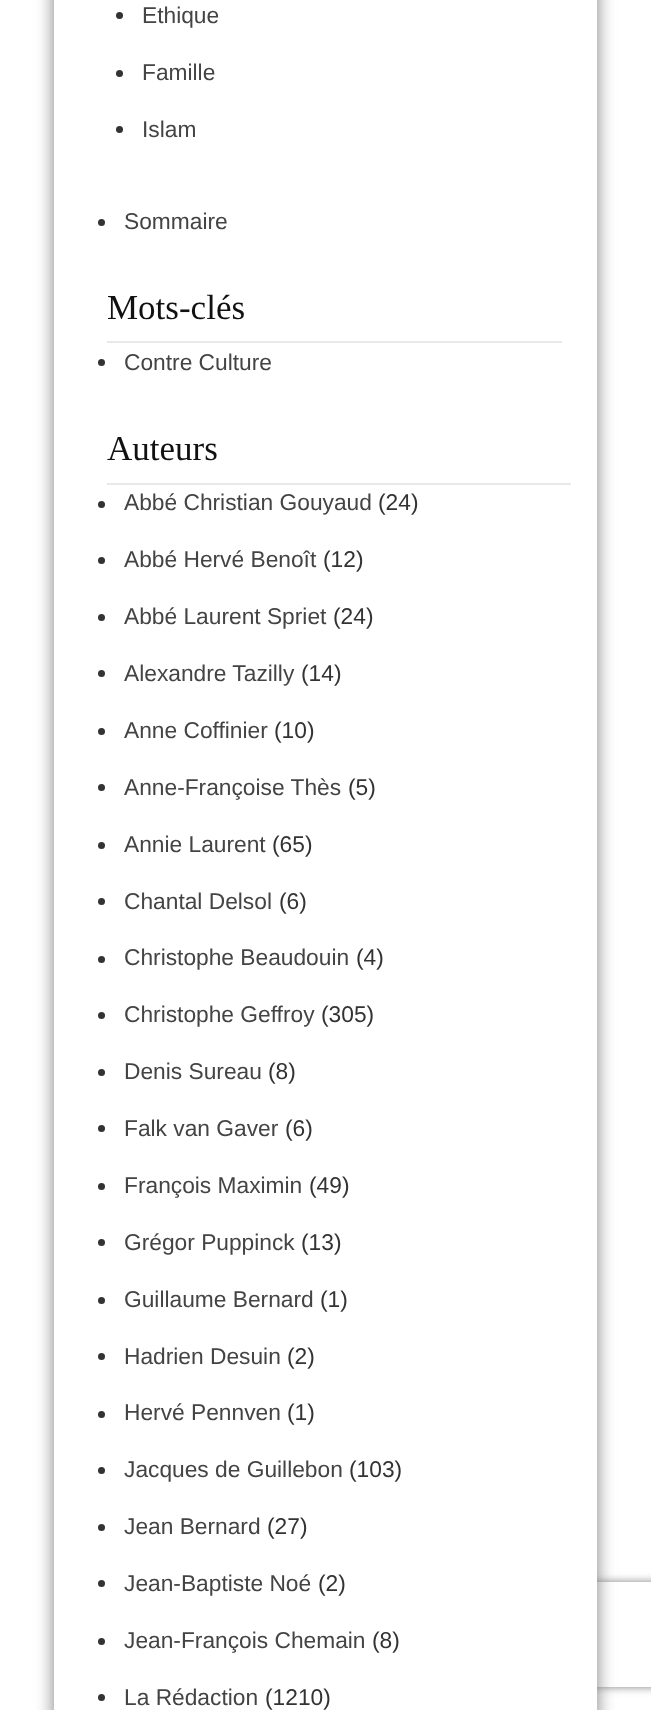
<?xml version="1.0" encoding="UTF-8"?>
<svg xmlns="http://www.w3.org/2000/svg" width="651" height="1710">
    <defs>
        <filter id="blur1" x="-50%" y="-200%" width="200%" height="500%"><feGaussianBlur stdDeviation="9"/></filter>
        <clipPath id="clip1"><path d="M 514 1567 H 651 V 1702 H 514 Z M 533 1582 H 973 C 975 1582 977 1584 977 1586 V 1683 C 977 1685 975 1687 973 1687 H 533 C 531 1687 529 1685 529 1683 V 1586 C 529 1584 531 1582 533 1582 Z" clip-rule="evenodd"/></clipPath>
        <filter id="blur2" x="-50%" y="-200%" width="200%" height="500%"><feGaussianBlur stdDeviation="4.5"/></filter>
    </defs>
    <rect width="100%" height="100%" fill="#FFFFFF"/>
    <rect x="54" y="-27" width="543" height="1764" fill="#000000" fill-opacity="0.5" filter="url(#blur1)"/>
    <g clip-path="url(#clip1)">
        <rect x="529" y="1582" width="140" height="105" rx="4" fill="#808080" filter="url(#blur2)"/>
    </g>
    <rect x="54" y="0" width="543" height="1710" fill="#FFFFFF"/>
    <circle cx="119.5" cy="15.5" r="3.5" fill="#333333"/>
    <text x="142" y="23" font-family="Liberation Sans" font-size="22.75" fill="#444444">Ethique</text>
    <circle cx="119.5" cy="73.5" r="3.5" fill="#333333"/>
    <text x="142" y="80" font-family="Liberation Sans" font-size="22.75" fill="#444444">Famille</text>
    <circle cx="119.5" cy="129.5" r="3.5" fill="#333333"/>
    <text x="142" y="137" font-family="Liberation Sans" font-size="22.75" fill="#444444">Islam</text>
    <circle cx="101.5" cy="222.5" r="3.5" fill="#333333"/>
    <text x="124" y="229" font-family="Liberation Sans" font-size="22.75" fill="#444444">Sommaire</text>
    <rect x="107" y="341" width="455" height="2" fill="#E9E9E9"/>
    <text x="107" y="319" font-family="Liberation Serif" font-size="35" fill="#111111">Mots-clés</text>
    <circle cx="101.5" cy="362.5" r="3.5" fill="#333333"/>
    <text x="124" y="370" font-family="Liberation Sans" font-size="22.75" fill="#444444">Contre Culture</text>
    <rect x="107" y="483" width="464" height="2" fill="#E9E9E9"/>
    <text x="107" y="460" font-family="Liberation Serif" font-size="35" fill="#111111">Auteurs</text>
    <circle cx="101.5" cy="504.5" r="3.5" fill="#333333"/>
    <text x="124" y="510" font-family="Liberation Sans" font-size="22.75" fill="#444444">Abbé Christian Gouyaud</text>
    <text x="378" y="510" font-family="Liberation Sans" font-size="22.75" fill="#333333">(24)</text>
    <circle cx="101.5" cy="560.5" r="3.5" fill="#333333"/>
    <text x="124" y="567" font-family="Liberation Sans" font-size="22.75" fill="#444444">Abbé Hervé Benoît</text>
    <text x="323" y="567" font-family="Liberation Sans" font-size="22.75" fill="#333333">(12)</text>
    <circle cx="101.5" cy="617.5" r="3.5" fill="#333333"/>
    <text x="124" y="624" font-family="Liberation Sans" font-size="22.75" fill="#444444">Abbé Laurent Spriet</text>
    <text x="333" y="624" font-family="Liberation Sans" font-size="22.75" fill="#333333">(24)</text>
    <circle cx="101.5" cy="673.5" r="3.5" fill="#333333"/>
    <text x="124" y="681" font-family="Liberation Sans" font-size="22.75" fill="#444444">Alexandre Tazilly</text>
    <text x="301" y="681" font-family="Liberation Sans" font-size="22.75" fill="#333333">(14)</text>
    <circle cx="101.5" cy="731.5" r="3.5" fill="#333333"/>
    <text x="124" y="738" font-family="Liberation Sans" font-size="22.75" fill="#444444">Anne Coffinier</text>
    <text x="274" y="738" font-family="Liberation Sans" font-size="22.75" fill="#333333">(10)</text>
    <circle cx="101.5" cy="787.5" r="3.5" fill="#333333"/>
    <text x="124" y="795" font-family="Liberation Sans" font-size="22.75" fill="#444444">Anne-Françoise Thès</text>
    <text x="348" y="795" font-family="Liberation Sans" font-size="22.75" fill="#333333">(5)</text>
    <circle cx="101.5" cy="845.5" r="3.5" fill="#333333"/>
    <text x="124" y="852" font-family="Liberation Sans" font-size="22.75" fill="#444444">Annie Laurent</text>
    <text x="272" y="852" font-family="Liberation Sans" font-size="22.75" fill="#333333">(65)</text>
    <circle cx="101.5" cy="901.5" r="3.5" fill="#333333"/>
    <text x="124" y="909" font-family="Liberation Sans" font-size="22.75" fill="#444444">Chantal Delsol</text>
    <text x="279" y="909" font-family="Liberation Sans" font-size="22.75" fill="#333333">(6)</text>
    <circle cx="101.5" cy="959.5" r="3.5" fill="#333333"/>
    <text x="124" y="965" font-family="Liberation Sans" font-size="22.75" fill="#444444">Christophe Beaudouin</text>
    <text x="356" y="965" font-family="Liberation Sans" font-size="22.75" fill="#333333">(4)</text>
    <circle cx="101.5" cy="1015.5" r="3.5" fill="#333333"/>
    <text x="124" y="1022" font-family="Liberation Sans" font-size="22.75" fill="#444444">Christophe Geffroy</text>
    <text x="321" y="1022" font-family="Liberation Sans" font-size="22.75" fill="#333333">(305)</text>
    <circle cx="101.5" cy="1072.5" r="3.5" fill="#333333"/>
    <text x="124" y="1079" font-family="Liberation Sans" font-size="22.75" fill="#444444">Denis Sureau</text>
    <text x="268" y="1079" font-family="Liberation Sans" font-size="22.75" fill="#333333">(8)</text>
    <circle cx="101.5" cy="1128.5" r="3.5" fill="#333333"/>
    <text x="124" y="1136" font-family="Liberation Sans" font-size="22.75" fill="#444444">Falk van Gaver</text>
    <text x="285" y="1136" font-family="Liberation Sans" font-size="22.75" fill="#333333">(6)</text>
    <circle cx="101.5" cy="1186.5" r="3.5" fill="#333333"/>
    <text x="124" y="1193" font-family="Liberation Sans" font-size="22.75" fill="#444444">François Maximin</text>
    <text x="309" y="1193" font-family="Liberation Sans" font-size="22.75" fill="#333333">(49)</text>
    <circle cx="101.5" cy="1242.5" r="3.5" fill="#333333"/>
    <text x="124" y="1250" font-family="Liberation Sans" font-size="22.75" fill="#444444">Grégor Puppinck</text>
    <text x="301" y="1250" font-family="Liberation Sans" font-size="22.75" fill="#333333">(13)</text>
    <circle cx="101.5" cy="1300.5" r="3.5" fill="#333333"/>
    <text x="124" y="1307" font-family="Liberation Sans" font-size="22.75" fill="#444444">Guillaume Bernard</text>
    <text x="320" y="1307" font-family="Liberation Sans" font-size="22.75" fill="#333333">(1)</text>
    <circle cx="101.5" cy="1356.5" r="3.5" fill="#333333"/>
    <text x="124" y="1364" font-family="Liberation Sans" font-size="22.75" fill="#444444">Hadrien Desuin</text>
    <text x="287" y="1364" font-family="Liberation Sans" font-size="22.75" fill="#333333">(2)</text>
    <circle cx="101.5" cy="1414.5" r="3.5" fill="#333333"/>
    <text x="124" y="1420" font-family="Liberation Sans" font-size="22.75" fill="#444444">Hervé Pennven</text>
    <text x="287" y="1420" font-family="Liberation Sans" font-size="22.75" fill="#333333">(1)</text>
    <circle cx="101.5" cy="1470.5" r="3.5" fill="#333333"/>
    <text x="124" y="1477" font-family="Liberation Sans" font-size="22.75" fill="#444444">Jacques de Guillebon</text>
    <text x="349" y="1477" font-family="Liberation Sans" font-size="22.75" fill="#333333">(103)</text>
    <circle cx="101.5" cy="1527.5" r="3.5" fill="#333333"/>
    <text x="124" y="1534" font-family="Liberation Sans" font-size="22.75" fill="#444444">Jean Bernard</text>
    <text x="267" y="1534" font-family="Liberation Sans" font-size="22.75" fill="#333333">(27)</text>
    <circle cx="101.5" cy="1583.5" r="3.5" fill="#333333"/>
    <text x="124" y="1591" font-family="Liberation Sans" font-size="22.75" fill="#444444">Jean-Baptiste Noé</text>
    <text x="318" y="1591" font-family="Liberation Sans" font-size="22.75" fill="#333333">(2)</text>
    <circle cx="101.5" cy="1641.5" r="3.5" fill="#333333"/>
    <text x="124" y="1648" font-family="Liberation Sans" font-size="22.75" fill="#444444">Jean-François Chemain</text>
    <text x="372" y="1648" font-family="Liberation Sans" font-size="22.75" fill="#333333">(8)</text>
    <circle cx="101.5" cy="1697.5" r="3.5" fill="#333333"/>
    <text x="124" y="1705" font-family="Liberation Sans" font-size="22.75" fill="#444444">La Rédaction</text>
    <text x="265" y="1705" font-family="Liberation Sans" font-size="22.75" fill="#333333">(1210)</text>
</svg>
